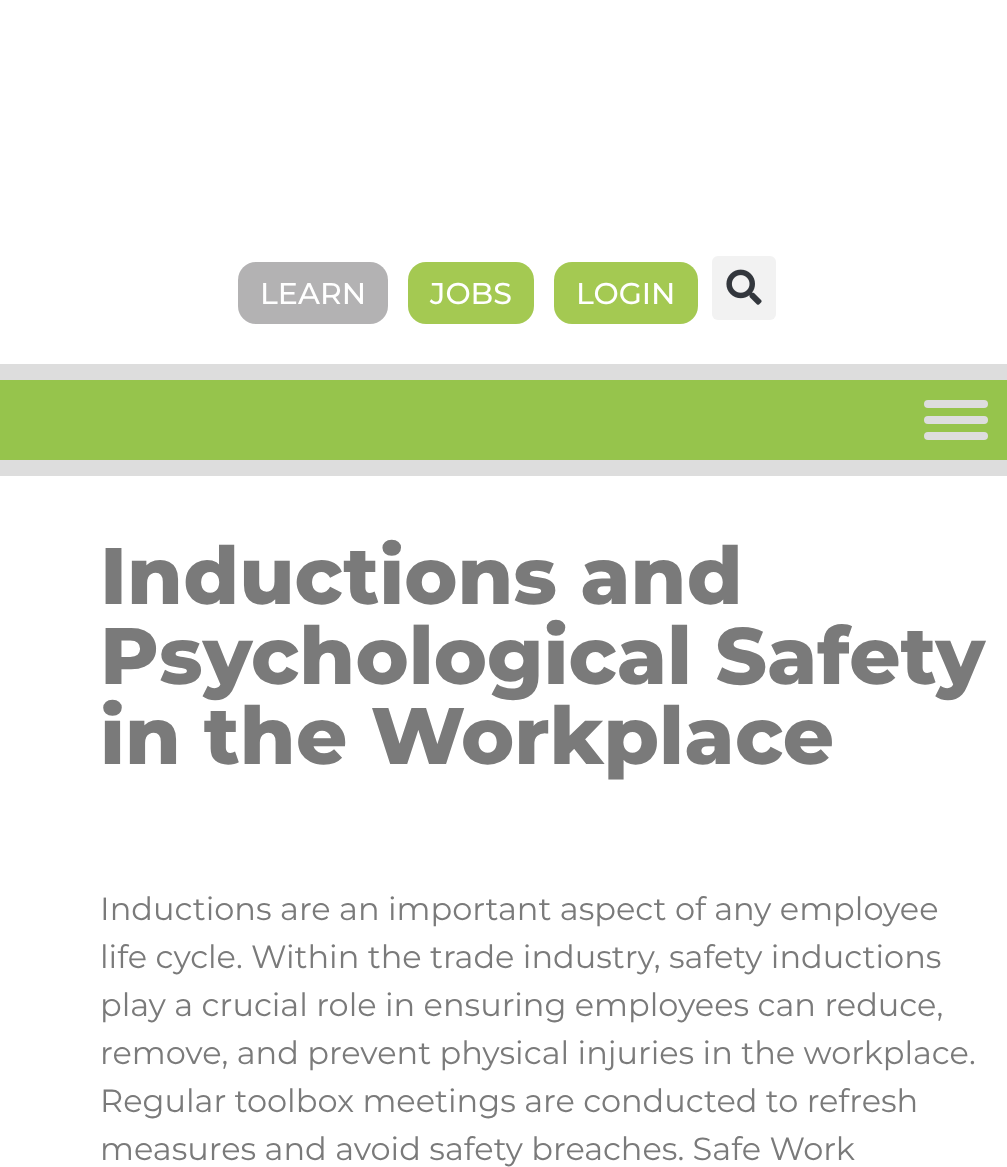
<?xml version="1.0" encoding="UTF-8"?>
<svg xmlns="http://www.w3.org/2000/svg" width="1007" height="1167">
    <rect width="100%" height="100%" fill="#DDDDDD"/>
    <rect x="0" y="0" width="1007" height="364" fill="#FFFFFF"/>
    <rect x="238" y="262" width="150" height="62" rx="18" fill="#B3B2B3"/>
    <text x="260" y="304" font-family="Montserrat" font-size="30" font-weight="500" fill="#FFFFFF">LEARN</text>
    <rect x="408" y="262" width="126" height="62" rx="18" fill="#A4C952"/>
    <text x="430" y="304" font-family="Montserrat" font-size="30" font-weight="500" fill="#FFFFFF">JOBS</text>
    <rect x="554" y="262" width="144" height="62" rx="18" fill="#A4C952"/>
    <text x="576" y="304" font-family="Montserrat" font-size="30" font-weight="500" fill="#FFFFFF">LOGIN</text>
    <rect x="712" y="256" width="64" height="64" rx="6" fill="#F2F2F2"/>
    <image x="726" y="269" width="36" height="36" href="img_01.png"/>
    <rect x="0" y="380" width="1007" height="80" fill="#96C44C"/>
    <rect x="924" y="400" width="64" height="8" rx="4" fill="#DDDDDD"/>
    <rect x="924" y="416" width="64" height="8" rx="4" fill="#DDDDDD"/>
    <rect x="924" y="432" width="64" height="8" rx="4" fill="#DDDDDD"/>
    <rect x="0" y="476" width="1007" height="691" fill="#FFFFFF"/>
    <text font-family="Montserrat" font-size="80" font-weight="800" fill="#7A7A7A">
        <tspan x="100" y="604">Inductions and</tspan>
        <tspan x="100" y="684">Psychological Safety</tspan>
        <tspan x="100" y="764">in the Workplace</tspan>
    </text>
    <text font-family="Montserrat" font-size="32" fill="#7A7A7A">
        <tspan x="100" y="920">Inductions are an important aspect of any employee</tspan>
        <tspan x="100" y="968">life cycle. Within the trade industry, safety inductions</tspan>
        <tspan x="100" y="1016">play a crucial role in ensuring employees can reduce,</tspan>
        <tspan x="100" y="1064">remove, and prevent physical injuries in the workplace.</tspan>
        <tspan x="100" y="1112">Regular toolbox meetings are conducted to refresh</tspan>
        <tspan x="100" y="1160">measures and avoid safety breaches. Safe Work</tspan>
    </text>
</svg>
